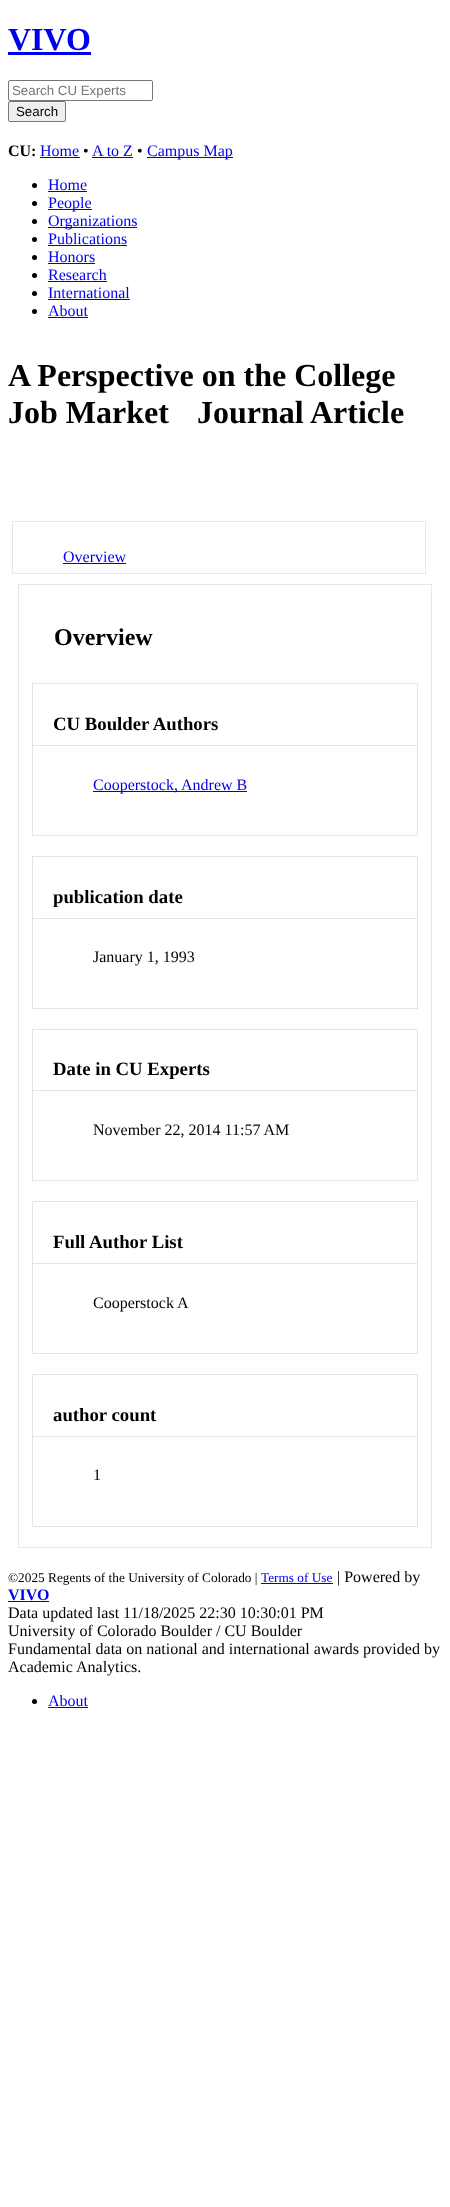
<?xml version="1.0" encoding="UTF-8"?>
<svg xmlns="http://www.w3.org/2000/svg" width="450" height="2207">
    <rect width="100%" height="100%" fill="#FFFFFF"/>
    <text x="8" y="50" font-family="Liberation Serif" font-size="32" font-weight="700" fill="#0000EE">VIVO</text>
    <rect x="8" y="52" width="83" height="3" fill="#0000EE"/>
    <rect x="8.5" y="80.5" width="144" height="20" rx="1.5" fill="none" stroke="#767676"/>
    <text x="12" y="95" font-family="Liberation Sans" font-size="13.3" fill="#757575">Search CU Experts</text>
    <rect x="8.5" y="101.5" width="57" height="20" rx="1.5" fill="#EFEFEF" stroke="#767676"/>
    <text x="16" y="116" font-family="Liberation Sans" font-size="13.3" fill="#000000">Search</text>
    <text x="8" y="156" font-family="Liberation Serif" font-size="16" font-weight="700" fill="#000000">CU:</text>
    <text x="40" y="156" font-family="Liberation Serif" font-size="16" fill="#0000EE">Home</text>
    <rect x="40" y="157" width="40" height="1" fill="#0000EE"/>
    <text x="83" y="156" font-family="Liberation Serif" font-size="16" fill="#000000">•</text>
    <text x="92" y="156" font-family="Liberation Serif" font-size="16" fill="#0000EE">A to Z</text>
    <rect x="92" y="157" width="41" height="1" fill="#0000EE"/>
    <text x="137" y="156" font-family="Liberation Serif" font-size="16" fill="#000000">•</text>
    <rect x="147" y="157" width="86" height="1" fill="#0000EE"/>
    <text x="147" y="156" font-family="Liberation Serif" font-size="16" fill="#0000EE">Campus Map</text>
    <circle cx="34.5" cy="185.5" r="2.5" fill="#000000"/>
    <text x="48" y="190" font-family="Liberation Serif" font-size="16" fill="#0000EE">Home</text>
    <rect x="48" y="191" width="39" height="1" fill="#0000EE"/>
    <circle cx="34.5" cy="203.5" r="2.5" fill="#000000"/>
    <rect x="48" y="209" width="44" height="1" fill="#0000EE"/>
    <text x="48" y="208" font-family="Liberation Serif" font-size="16" fill="#0000EE">People</text>
    <circle cx="34.5" cy="221.5" r="2.5" fill="#000000"/>
    <rect x="48" y="227" width="89" height="1" fill="#0000EE"/>
    <text x="48" y="226" font-family="Liberation Serif" font-size="16" fill="#0000EE">Organizations</text>
    <circle cx="34.5" cy="239.5" r="2.5" fill="#000000"/>
    <text x="48" y="244" font-family="Liberation Serif" font-size="16" fill="#0000EE">Publications</text>
    <rect x="48" y="245" width="79" height="1" fill="#0000EE"/>
    <circle cx="34.5" cy="257.5" r="2.5" fill="#000000"/>
    <text x="48" y="262" font-family="Liberation Serif" font-size="16" fill="#0000EE">Honors</text>
    <rect x="48" y="263" width="47" height="1" fill="#0000EE"/>
    <circle cx="34.5" cy="275.5" r="2.5" fill="#000000"/>
    <text x="48" y="280" font-family="Liberation Serif" font-size="16" fill="#0000EE">Research</text>
    <rect x="48" y="281" width="59" height="1" fill="#0000EE"/>
    <circle cx="34.5" cy="293.5" r="2.5" fill="#000000"/>
    <text x="48" y="298" font-family="Liberation Serif" font-size="16" fill="#0000EE">International</text>
    <rect x="48" y="299" width="82" height="1" fill="#0000EE"/>
    <circle cx="34.5" cy="311.5" r="2.5" fill="#000000"/>
    <text x="48" y="316" font-family="Liberation Serif" font-size="16" fill="#0000EE">About</text>
    <rect x="48" y="317" width="40" height="1" fill="#0000EE"/>
    <text font-family="Liberation Serif" font-size="32" font-weight="700" fill="#000000">
        <tspan x="8" y="386">A Perspective on the College</tspan>
        <tspan x="8" y="423">Job Market</tspan>
    </text>
    <text x="197" y="423" font-family="Liberation Serif" font-size="32" font-weight="700" fill="#000000">Journal Article</text>
    <rect x="12.5" y="521.5" width="413" height="52" fill="none" stroke="#DFEBE5"/>
    <text x="63" y="562" font-family="Liberation Serif" font-size="16" fill="#0000EE">Overview</text>
    <rect x="63" y="563" width="63" height="1" fill="#0000EE"/>
    <rect x="18.5" y="584.5" width="413" height="963" fill="none" stroke="#DFEBE5"/>
    <text x="54" y="645" font-family="Liberation Serif" font-size="24" font-weight="700" fill="#000000">Overview</text>
    <rect x="32.5" y="683.5" width="385" height="152" fill="none" stroke="#DFE6E5"/>
    <rect x="33" y="745" width="384" height="1" fill="#DFE6E5"/>
    <text x="53" y="730" font-family="Liberation Serif" font-size="18.75" font-weight="700" fill="#000000">CU Boulder Authors</text>
    <rect x="93" y="791" width="154" height="1" fill="#0000EE"/>
    <text x="93" y="790" font-family="Liberation Serif" font-size="16" fill="#0000EE">Cooperstock, Andrew B</text>
    <rect x="32.5" y="856.5" width="385" height="152" fill="none" stroke="#DFE6E5"/>
    <rect x="33" y="918" width="384" height="1" fill="#DFE6E5"/>
    <text x="53" y="903" font-family="Liberation Serif" font-size="18.75" font-weight="700" fill="#000000">publication date</text>
    <text x="93" y="962" font-family="Liberation Serif" font-size="16" fill="#000000">January 1, 1993</text>
    <rect x="32.5" y="1029.5" width="385" height="151" fill="none" stroke="#DFE6E5"/>
    <rect x="33" y="1090" width="384" height="1" fill="#DFE6E5"/>
    <text x="53" y="1075" font-family="Liberation Serif" font-size="18.75" font-weight="700" fill="#000000">Date in CU Experts</text>
    <text x="93" y="1135" font-family="Liberation Serif" font-size="16" fill="#000000">November 22, 2014 11:57 AM</text>
    <rect x="32.5" y="1201.5" width="385" height="152" fill="none" stroke="#DFE6E5"/>
    <rect x="33" y="1263" width="384" height="1" fill="#DFE6E5"/>
    <text x="53" y="1248" font-family="Liberation Serif" font-size="18.75" font-weight="700" fill="#000000">Full Author List</text>
    <text x="93" y="1308" font-family="Liberation Serif" font-size="16" fill="#000000">Cooperstock A</text>
    <rect x="32.5" y="1374.5" width="385" height="152" fill="none" stroke="#DFE6E5"/>
    <rect x="33" y="1436" width="384" height="1" fill="#DFE6E5"/>
    <text x="53" y="1421" font-family="Liberation Serif" font-size="18.75" font-weight="700" fill="#000000">author count</text>
    <text x="93" y="1480" font-family="Liberation Serif" font-size="16" fill="#000000">1</text>
    <text x="8" y="1582" font-family="Liberation Serif" font-size="13.3" fill="#000000">©2025 Regents of the University of Colorado |</text>
    <text x="261" y="1582" font-family="Liberation Serif" font-size="13.3" fill="#0000EE">Terms of Use</text>
    <rect x="261" y="1583" width="72" height="1" fill="#0000EE"/>
    <text x="337" y="1582" font-family="Liberation Serif" font-size="16" fill="#000000">| Powered by</text>
    <text x="8" y="1600" font-family="Liberation Serif" font-size="16" font-weight="700" fill="#0000EE">VIVO</text>
    <rect x="8" y="1601" width="41" height="1" fill="#0000EE"/>
    <text font-family="Liberation Serif" font-size="16" fill="#000000">
        <tspan x="8" y="1618">Data updated last 11/18/2025 22:30 10:30:01 PM</tspan>
        <tspan x="8" y="1636">University of Colorado Boulder / CU Boulder</tspan>
        <tspan x="8" y="1654">Fundamental data on national and international awards provided by</tspan>
        <tspan x="8" y="1672">Academic Analytics.</tspan>
    </text>
    <circle cx="34.5" cy="1701.5" r="2.5" fill="#000000"/>
    <text x="48" y="1706" font-family="Liberation Serif" font-size="16" fill="#0000EE">About</text>
    <rect x="48" y="1707" width="40" height="1" fill="#0000EE"/>
</svg>
